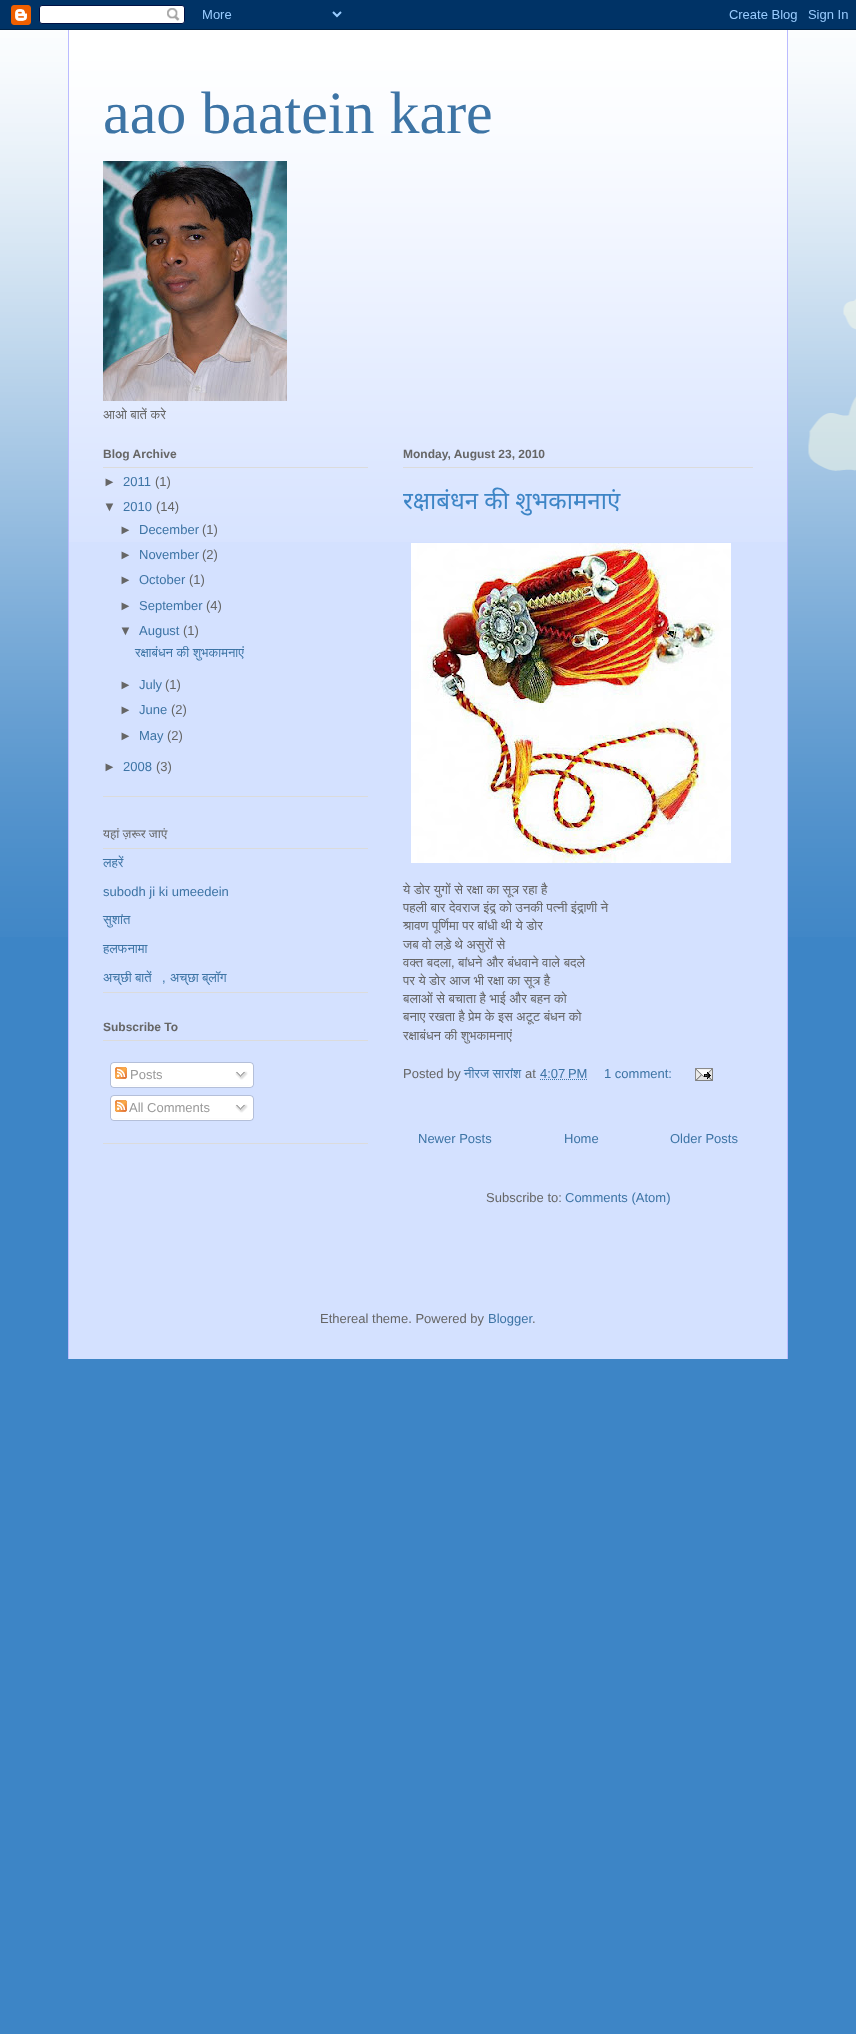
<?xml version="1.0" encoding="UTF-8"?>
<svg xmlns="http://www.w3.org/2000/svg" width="856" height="2034">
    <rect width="100%" height="100%" fill="#3D85C6"/>
    <image x="0" y="0" width="856" height="30" href="img_01.png"/>
    <image x="0" y="30" width="856" height="907" href="img_02.png"/>
    <rect x="69" y="37" width="718" height="1322" fill="#D4E1FF"/>
    <image x="69" y="30" width="718" height="512" href="img_03.png"/>
    <rect x="787" y="30" width="1" height="1329" fill="#BBBBFF"/>
    <rect x="68" y="30" width="1" height="1329" fill="#BBBBFF"/>
    <text x="103" y="133" font-family="Liberation Serif" font-size="60" fill="#3D74A5">aao baatein kare</text>
    <image x="103" y="161" width="184" height="240" href="img_04.png"/>
    <text x="103" y="419" word-spacing="0.25" font-family="FreeSans" font-size="13" fill="#666666">आओ बातें करे</text>
    <rect x="103" y="796" width="265" height="1" fill="#DBDBDB"/>
    <rect x="103" y="467" width="265" height="1" fill="#DBDBDB"/>
    <text x="103" y="458" font-family="Liberation Sans" font-size="12" font-weight="700" fill="#666666">Blog Archive</text>
    <text x="103" y="486" font-family="Liberation Sans" font-size="13" fill="#666666">►</text>
    <text x="123" y="486" font-family="Liberation Sans" font-size="13" fill="#3D74A5">2011</text>
    <text x="155" y="486" font-family="Liberation Sans" font-size="13" fill="#666666">(1)</text>
    <text x="103" y="511" font-family="Liberation Sans" font-size="13" fill="#666666">▼</text>
    <text x="123" y="511" font-family="Liberation Sans" font-size="13" fill="#3D74A5">2010</text>
    <text x="156" y="511" font-family="Liberation Sans" font-size="13" fill="#666666">(14)</text>
    <text x="119" y="534" font-family="Liberation Sans" font-size="13" fill="#666666">►</text>
    <text x="139" y="534" font-family="Liberation Sans" font-size="13" fill="#3D74A5">December</text>
    <text x="202" y="534" font-family="Liberation Sans" font-size="13" fill="#666666">(1)</text>
    <text x="119" y="559" font-family="Liberation Sans" font-size="13" fill="#666666">►</text>
    <text x="139" y="559" font-family="Liberation Sans" font-size="13" fill="#3D74A5">November</text>
    <text x="202" y="559" font-family="Liberation Sans" font-size="13" fill="#666666">(2)</text>
    <text x="119" y="584" font-family="Liberation Sans" font-size="13" fill="#666666">►</text>
    <text x="139" y="584" font-family="Liberation Sans" font-size="13" fill="#3D74A5">October</text>
    <text x="189" y="584" font-family="Liberation Sans" font-size="13" fill="#666666">(1)</text>
    <text x="119" y="610" font-family="Liberation Sans" font-size="13" fill="#666666">►</text>
    <text x="139" y="610" font-family="Liberation Sans" font-size="13" fill="#3D74A5">September</text>
    <text x="206" y="610" font-family="Liberation Sans" font-size="13" fill="#666666">(4)</text>
    <text x="119" y="635" font-family="Liberation Sans" font-size="13" fill="#666666">▼</text>
    <text x="139" y="635" font-family="Liberation Sans" font-size="13" fill="#3D74A5">August</text>
    <text x="183" y="635" font-family="Liberation Sans" font-size="13" fill="#666666">(1)</text>
    <text x="135" y="657" word-spacing="0.25" font-family="FreeSans" font-size="13" fill="#3D74A5">रक्षाबंधन की शुभकामनाएं</text>
    <text x="119" y="689" font-family="Liberation Sans" font-size="13" fill="#666666">►</text>
    <text x="139" y="689" font-family="Liberation Sans" font-size="13" fill="#3D74A5">July</text>
    <text x="165" y="689" font-family="Liberation Sans" font-size="13" fill="#666666">(1)</text>
    <text x="119" y="714" font-family="Liberation Sans" font-size="13" fill="#666666">►</text>
    <text x="139" y="714" font-family="Liberation Sans" font-size="13" fill="#3D74A5">June</text>
    <text x="171" y="714" font-family="Liberation Sans" font-size="13" fill="#666666">(2)</text>
    <text x="119" y="740" font-family="Liberation Sans" font-size="13" fill="#666666">►</text>
    <text x="139" y="740" font-family="Liberation Sans" font-size="13" fill="#3D74A5">May</text>
    <text x="167" y="740" font-family="Liberation Sans" font-size="13" fill="#666666">(2)</text>
    <text x="103" y="771" font-family="Liberation Sans" font-size="13" fill="#666666">►</text>
    <text x="123" y="771" font-family="Liberation Sans" font-size="13" fill="#3D74A5">2008</text>
    <text x="156" y="771" font-family="Liberation Sans" font-size="13" fill="#666666">(3)</text>
    <rect x="103" y="992" width="265" height="1" fill="#DBDBDB"/>
    <rect x="103" y="848" width="265" height="1" fill="#DBDBDB"/>
    <text x="103" y="838" font-family="Noto Sans" font-size="12" fill="#666666">यहां ज़रूर जाएं</text>
    <text x="103" y="867" font-family="FreeSans" font-size="13" fill="#3D74A5">लहरें</text>
    <text x="103" y="896" font-family="Liberation Sans" font-size="13" fill="#3D74A5">subodh ji ki umeedein</text>
    <text x="103" y="924" font-family="FreeSans" font-size="13" fill="#3D74A5">सुशांत</text>
    <text x="103" y="953" font-family="FreeSans" font-size="13" fill="#3D74A5">हलफनामा</text>
    <text x="103" y="982" font-family="FreeSans" font-size="13" fill="#3D74A5">अच््छी बातें</text>
    <text x="162" y="982" font-family="Liberation Sans" font-size="13" fill="#3D74A5">,</text>
    <text x="170" y="982" font-family="FreeSans" font-size="13" fill="#3D74A5">अच््छा ब््लॉग</text>
    <rect x="103" y="1143" width="265" height="1" fill="#DBDBDB"/>
    <rect x="103" y="1040" width="265" height="1" fill="#DBDBDB"/>
    <text x="103" y="1031" font-family="Liberation Sans" font-size="12" font-weight="700" fill="#666666">Subscribe To</text>
    <image x="110" y="1062" width="144" height="23" href="img_05.png"/>
    <image x="115" y="1067" width="12" height="12" href="img_06.png"/>
    <text x="130" y="1079" font-family="Liberation Sans" font-size="13" fill="#999999">Posts</text>
    <image x="235" y="1071" width="13" height="9" href="img_07.png"/>
    <image x="110" y="1085" width="144" height="3" href="img_08.png"/>
    <image x="110" y="1095" width="144" height="23" href="img_05.png"/>
    <image x="115" y="1100" width="12" height="12" href="img_06.png"/>
    <text x="129" y="1112" font-family="Liberation Sans" font-size="13" fill="#999999">All Comments</text>
    <image x="235" y="1104" width="13" height="9" href="img_07.png"/>
    <image x="110" y="1118" width="144" height="3" href="img_08.png"/>
    <rect x="403" y="467" width="350" height="1" fill="#DBDBDB"/>
    <text x="403" y="458" font-family="Liberation Sans" font-size="12" font-weight="700" fill="#666666">Monday, August 23, 2010</text>
    <text x="403" y="509" font-family="Noto Sans" font-size="24" fill="#3D85C6">रक्षाबंधन की शुभकामनाएं</text>
    <image x="411" y="543" width="320" height="320" href="img_09.png"/>
    <text font-family="FreeSans" font-size="13" fill="#666666">
        <tspan x="403" y="894" word-spacing="0.25">ये डोर युगों से रक्षा का सूत्र रहा है</tspan>
        <tspan x="403" y="912" word-spacing="0.25">पहली बार देवराज इंद्र को उनकी पत्नी इंद्राणी ने</tspan>
        <tspan x="403" y="930" word-spacing="0.25">श्रावण पूर्णिमा पर बांधी थी ये डोर</tspan>
        <tspan x="403" y="949" word-spacing="0.25">जब वो लड़े थे असुरों से</tspan>
        <tspan x="403" y="967" word-spacing="0.5">वक्त बदला</tspan>
    </text>
    <text x="451" y="967" font-family="Liberation Sans" font-size="13" fill="#666666">,</text>
    <text x="458" y="967" word-spacing="0.5" font-family="FreeSans" font-size="13" fill="#666666">बांधने और बंधवाने वाले बदले</text>
    <text font-family="FreeSans" font-size="13" fill="#666666">
        <tspan x="403" y="985" word-spacing="0.25">पर ये डोर आज भी रक्षा का सूत्र है</tspan>
        <tspan x="403" y="1003" word-spacing="0.25">बलाओं से बचाता है भाई और बहन को</tspan>
        <tspan x="403" y="1021" word-spacing="0.25">बनाए रखता है प्रेम के इस अटूट बंधन को</tspan>
        <tspan x="403" y="1040" word-spacing="0.25">रक्षाबंधन की शुभकामनाएं</tspan>
    </text>
    <text x="403" y="1078" font-family="Liberation Sans" font-size="13" fill="#666666">Posted by</text>
    <text x="464" y="1078" word-spacing="0.25" font-family="FreeSans" font-size="13" fill="#3D74A5">नीरज सारांश</text>
    <text x="525" y="1078" font-family="Liberation Sans" font-size="13" fill="#666666">at</text>
    <text x="540" y="1078" font-family="Liberation Sans" font-size="13" fill="#3D74A5">4:07 PM</text>
    <path d="M 540 1079.5 H 587.5" fill="none" stroke="#3D74A5" stroke-dasharray="1 1"/>
    <text x="604" y="1078" font-family="Liberation Sans" font-size="13" fill="#3D74A5">1 comment:</text>
    <image x="695" y="1068" width="18" height="13" href="img_10.png"/>
    <text x="418" y="1143" font-family="Liberation Sans" font-size="13" fill="#3D74A5">Newer Posts</text>
    <text x="564" y="1143" font-family="Liberation Sans" font-size="13" fill="#3D74A5">Home</text>
    <text x="670" y="1143" font-family="Liberation Sans" font-size="13" fill="#3D74A5">Older Posts</text>
    <text x="486" y="1202" font-family="Liberation Sans" font-size="13" fill="#666666">Subscribe to:</text>
    <text x="565" y="1202" font-family="Liberation Sans" font-size="13" fill="#3D74A5">Comments (Atom)</text>
    <text x="320" y="1323" font-family="Liberation Sans" font-size="13" fill="#666666">Ethereal theme. Powered by</text>
    <text x="488" y="1323" font-family="Liberation Sans" font-size="13" fill="#3D74A5">Blogger</text>
    <text x="532" y="1323" font-family="Liberation Sans" font-size="13" fill="#666666">.</text>
</svg>
